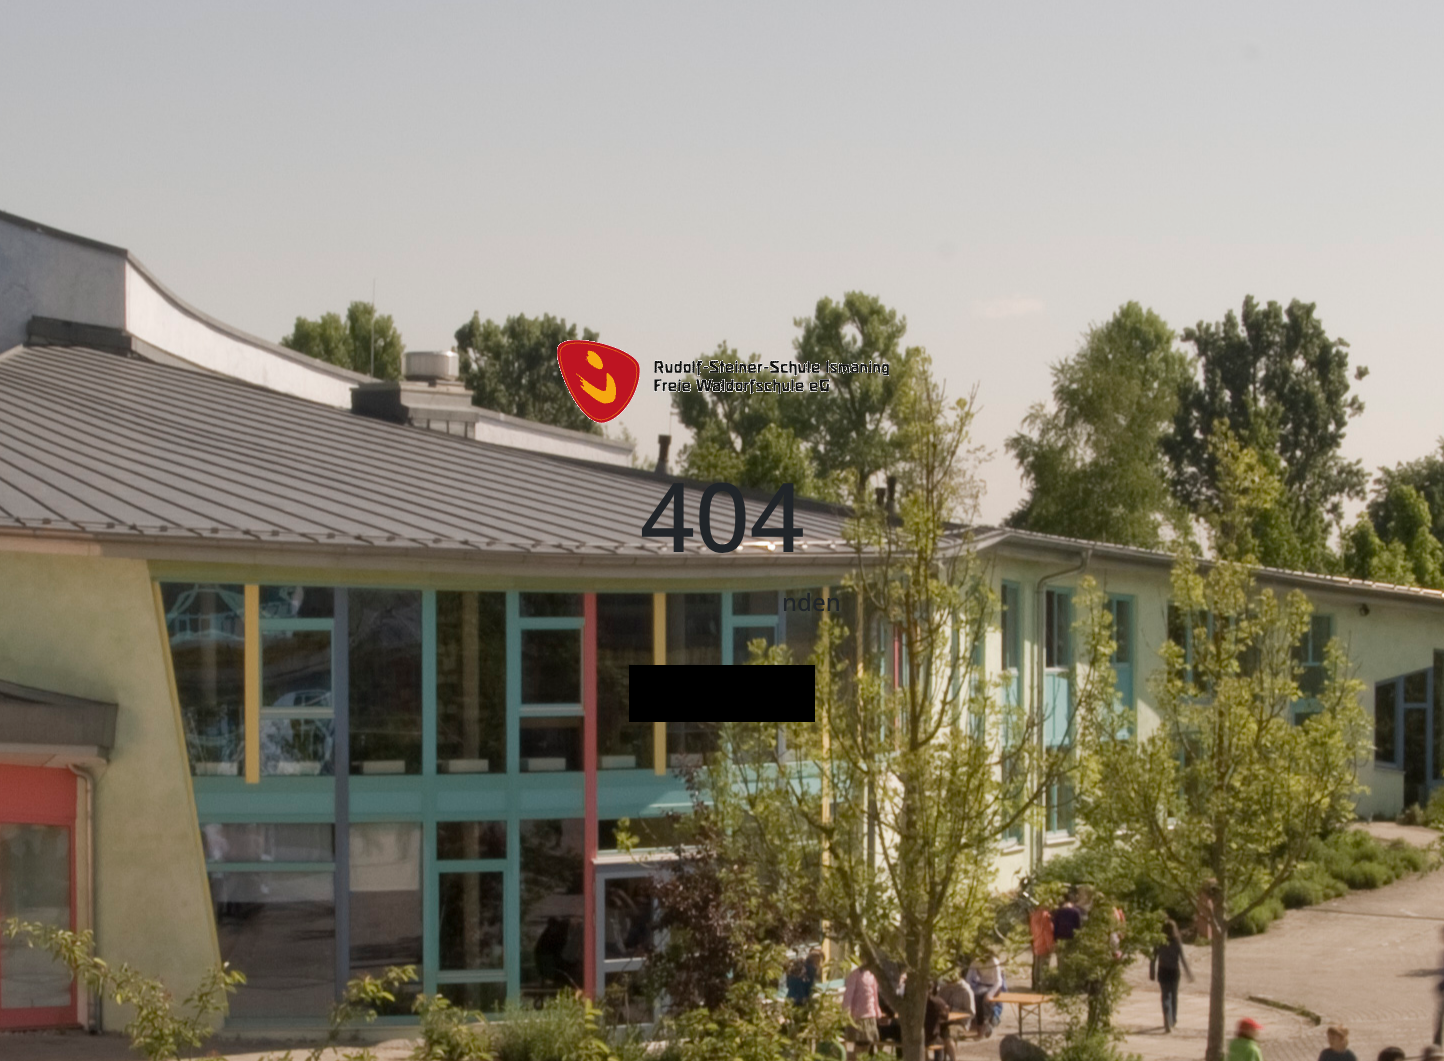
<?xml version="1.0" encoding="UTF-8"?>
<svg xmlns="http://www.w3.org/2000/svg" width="1444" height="1061">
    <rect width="100%" height="100%" fill="#FFFFFF"/>
    <image x="0" y="0" width="1444" height="1061" href="img_01.png"/>
    <image x="557" y="340" width="332" height="83" href="img_02.png"/>
    <text x="640" y="552" font-family="Noto Sans" font-size="96" font-weight="500" fill="#212529">404</text>
    <text x="782" y="611" font-family="Noto Sans" font-size="24" font-weight="500" fill="#212529">nden</text>
    <rect x="629" y="665" width="186" height="57" fill="#000000"/>
</svg>
